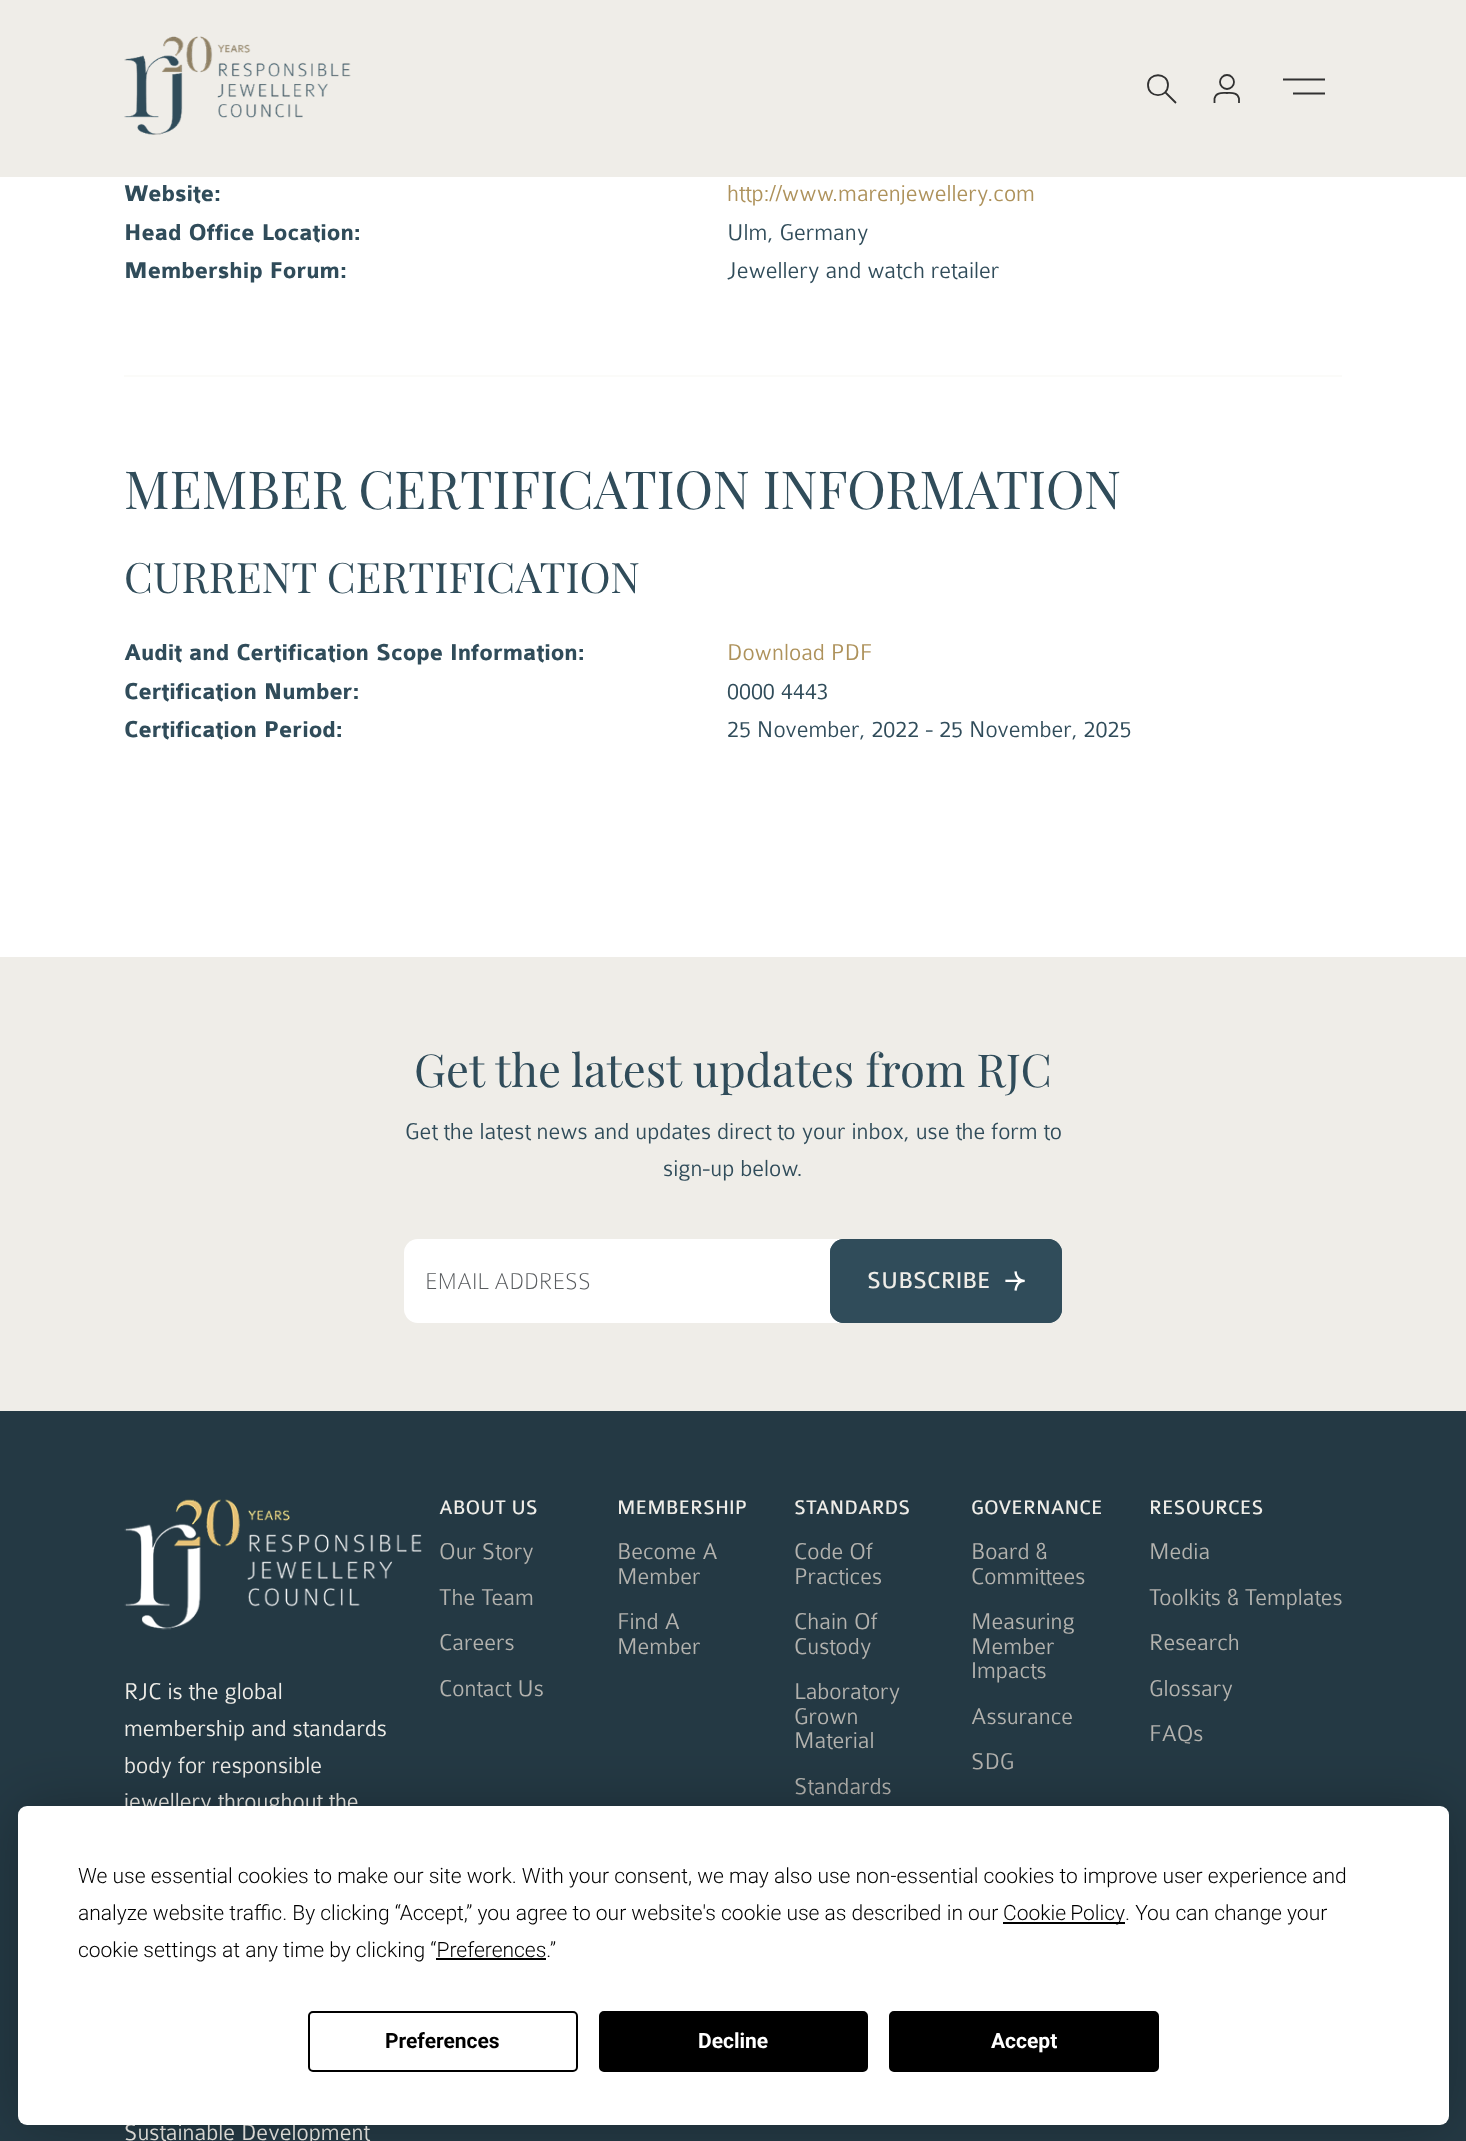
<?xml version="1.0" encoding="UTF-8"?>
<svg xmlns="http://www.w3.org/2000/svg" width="1466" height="2141">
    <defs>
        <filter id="blur1" x="-50%" y="-200%" width="200%" height="500%"><feGaussianBlur stdDeviation="30.5"/></filter>
    </defs>
    <rect width="100%" height="100%" fill="#FFFFFF"/>
    <rect x="0" y="0" width="1466" height="177" fill="#EFEDE8"/>
    <image x="124" y="36" width="227" height="99" href="img_01.png"/>
    <path d="M 1148 85 C 1148 98.5 1168 98.5 1168 85 C 1168 72 1148 72 1148 85 Z M 1165 92 L 1176 103" fill="none" stroke="#313131" stroke-width="1.8"/>
    <circle cx="1227" cy="82" r="7" fill="none" stroke="#313131" stroke-width="1.8"/>
    <path d="M 1214.5 103 V 98.5 C 1216 92 1222 93 1227 93 C 1231.5 93 1237.5 92 1239 98.5 V 103" fill="none" stroke="#313131" stroke-width="1.8"/>
    <path d="M 1283 79.5 H 1325 M 1293 93.5 H 1325" fill="none" stroke="#313131" stroke-width="1.8"/>
    <text x="124" y="201" font-family="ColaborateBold" font-size="24.5" font-weight="700" fill="#304C5A">Website:</text>
    <text x="727" y="201" font-family="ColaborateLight" font-size="24.5" font-weight="300" fill="#AE925B">http://www.marenjewellery.com</text>
    <text x="124" y="240" font-family="ColaborateBold" font-size="24.5" font-weight="700" fill="#304C5A">Head Office Location:</text>
    <text x="727" y="240" font-family="ColaborateLight" font-size="24.5" font-weight="300" fill="#304C5A">Ulm, Germany</text>
    <text x="124" y="278" font-family="ColaborateBold" font-size="24.5" font-weight="700" fill="#304C5A">Membership Forum:</text>
    <text x="727" y="278" font-family="ColaborateLight" font-size="24.5" font-weight="300" fill="#304C5A">Jewellery and watch retailer</text>
    <rect x="124" y="375" width="1218" height="2" fill="#FBFBF9"/>
    <text x="124" y="509" font-family="Playfair Display" font-size="52.5" fill="#304C5A">MEMBER CERTIFICATION INFORMATION</text>
    <text x="124" y="593" font-family="Playfair Display" font-size="42" fill="#304C5A">CURRENT CERTIFICATION</text>
    <text x="124" y="660" font-family="ColaborateBold" font-size="24.5" font-weight="700" fill="#304C5A">Audit and Certification Scope Information:</text>
    <text x="727" y="660" font-family="ColaborateLight" font-size="24.5" font-weight="300" fill="#AE925B">Download PDF</text>
    <text x="124" y="699" font-family="ColaborateBold" font-size="24.5" font-weight="700" fill="#304C5A">Certification Number:</text>
    <text x="727" y="699" font-family="ColaborateLight" font-size="24.5" font-weight="300" fill="#304C5A">0000 4443</text>
    <text x="124" y="737" font-family="ColaborateBold" font-size="24.5" font-weight="700" fill="#304C5A">Certification Period:</text>
    <text x="727" y="737" font-family="ColaborateLight" font-size="24.5" font-weight="300" fill="#304C5A">25 November, 2022 - 25 November, 2025</text>
    <rect x="0" y="957" width="1466" height="454" fill="#EFEDE8"/>
    <text x="414" y="1087" font-family="Playfair Display" font-size="45.5" fill="#304C5A">Get the latest updates from RJC</text>
    <text x="405" y="1139" font-family="ColaborateLight" font-size="24.5" font-weight="300" fill="#304C5A">Get the latest news and updates direct to your inbox, use the form to</text>
    <text x="663" y="1176" font-family="ColaborateLight" font-size="24.5" font-weight="300" fill="#304C5A">sign-up below.</text>
    <rect x="404" y="1239" width="658" height="84" rx="14" fill="#FFFFFF"/>
    <text x="425" y="1289" font-family="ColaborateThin" font-size="24.5" font-weight="100" fill="#595C5F">EMAIL ADDRESS</text>
    <rect x="830" y="1239" width="232" height="84" rx="14" fill="#304C5A"/>
    <image x="1005" y="1271" width="20" height="20" href="img_02.png"/>
    <rect x="831" y="1240" width="230" height="82" rx="13" fill="none" stroke="#304C5A" stroke-width="2"/>
    <text x="867" y="1288" font-family="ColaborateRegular" font-size="24.5" fill="#EFEDE8">SUBSCRIBE</text>
    <rect x="0" y="1411" width="1466" height="730" fill="#243944"/>
    <text x="439" y="1514" font-family="ColaborateRegular" font-size="21" fill="#EFEDE8">ABOUT US</text>
    <text font-family="ColaborateLight" font-size="24.5" font-weight="300" fill="#B3B2AE">
        <tspan x="439" y="1559">Our Story</tspan>
        <tspan x="439" y="1605">The Team</tspan>
        <tspan x="439" y="1650">Careers</tspan>
        <tspan x="439" y="1696">Contact Us</tspan>
    </text>
    <text x="617" y="1514" font-family="ColaborateRegular" font-size="21" fill="#EFEDE8">MEMBERSHIP</text>
    <text font-family="ColaborateLight" font-size="24.5" font-weight="300" fill="#B3B2AE">
        <tspan x="617" y="1559">Become A</tspan>
        <tspan x="617" y="1584">Member</tspan>
        <tspan x="617" y="1629">Find A</tspan>
        <tspan x="617" y="1654">Member</tspan>
    </text>
    <text x="794" y="1514" font-family="ColaborateRegular" font-size="21" fill="#EFEDE8">STANDARDS</text>
    <text font-family="ColaborateLight" font-size="24.5" font-weight="300" fill="#B3B2AE">
        <tspan x="794" y="1559">Code Of</tspan>
        <tspan x="794" y="1584">Practices</tspan>
        <tspan x="794" y="1629">Chain Of</tspan>
        <tspan x="794" y="1654">Custody</tspan>
        <tspan x="794" y="1699">Laboratory</tspan>
        <tspan x="794" y="1724">Grown</tspan>
        <tspan x="794" y="1748">Material</tspan>
        <tspan x="794" y="1794">Standards</tspan>
    </text>
    <text x="971" y="1514" font-family="ColaborateRegular" font-size="21" fill="#EFEDE8">GOVERNANCE</text>
    <text font-family="ColaborateLight" font-size="24.5" font-weight="300" fill="#B3B2AE">
        <tspan x="971" y="1559">Board &amp;</tspan>
        <tspan x="971" y="1584">Committees</tspan>
        <tspan x="971" y="1629">Measuring</tspan>
        <tspan x="971" y="1654">Member</tspan>
        <tspan x="971" y="1678">Impacts</tspan>
        <tspan x="971" y="1724">Assurance</tspan>
        <tspan x="971" y="1769">SDG</tspan>
    </text>
    <text x="1149" y="1514" font-family="ColaborateRegular" font-size="21" fill="#EFEDE8">RESOURCES</text>
    <text font-family="ColaborateLight" font-size="24.5" font-weight="300" fill="#B3B2AE">
        <tspan x="1149" y="1559">Media</tspan>
        <tspan x="1149" y="1605">Toolkits &amp; Templates</tspan>
        <tspan x="1149" y="1650">Research</tspan>
        <tspan x="1149" y="1696">Glossary</tspan>
        <tspan x="1149" y="1741">FAQs</tspan>
    </text>
    <image x="124" y="1499" width="298" height="131" href="img_03.png"/>
    <text font-family="ColaborateLight" font-size="24.5" font-weight="300" fill="#EFEDE8">
        <tspan x="124" y="1699">RJC is the global</tspan>
        <tspan x="124" y="1736">membership and standards</tspan>
        <tspan x="124" y="1773">body for responsible</tspan>
        <tspan x="124" y="1809">jewellery throughout the</tspan>
    </text>
    <text x="124" y="2140" font-family="ColaborateLight" font-size="24.5" font-weight="300" fill="#EFEDE8">Sustainable Development</text>
    <rect x="18" y="1806" width="1431" height="319" rx="9" fill="#000000" fill-opacity="0.25" filter="url(#blur1)"/>
    <rect x="18" y="1806" width="1431" height="319" rx="9" fill="#FFFFFF"/>
    <text font-family="Roboto" font-size="21" font-weight="300" fill="#000000">
        <tspan x="78" y="1883">We use essential cookies to make our site work. With your consent, we may also use non-essential cookies to improve user experience and</tspan>
        <tspan x="78" y="1920">analyze website traffic. By clicking “Accept,” you agree to our website's cookie use as described in our</tspan>
    </text>
    <rect x="1003" y="1922" width="122" height="2" fill="#000000"/>
    <text x="1003" y="1920" word-spacing="-1" font-family="Roboto" font-size="21" font-weight="300" fill="#000000">Cookie Policy</text>
    <text x="1125" y="1920" font-family="Roboto" font-size="21" font-weight="300" fill="#000000">. You can change your</text>
    <text x="78" y="1957" font-family="Roboto" font-size="21" font-weight="300" fill="#000000">cookie settings at any time by clicking “Preferences.”</text>
    <rect x="436" y="1958" width="110" height="2" fill="#000000"/>
    <rect x="309" y="2012" width="268" height="59" rx="4" fill="none" stroke="#000000" stroke-width="2"/>
    <text x="385" y="2048" font-family="Roboto" font-size="21" font-weight="700" fill="#000000">Preferences</text>
    <rect x="600" y="2012" width="267" height="59" rx="4" fill="#000000" stroke="#000000" stroke-width="2"/>
    <text x="698" y="2048" font-family="Roboto" font-size="21" font-weight="700" fill="#FFFFFF">Decline</text>
    <rect x="890" y="2012" width="268" height="59" rx="4" fill="#000000" stroke="#000000" stroke-width="2"/>
    <text x="991" y="2048" font-family="Roboto" font-size="21" font-weight="700" fill="#FFFFFF">Accept</text>
</svg>
